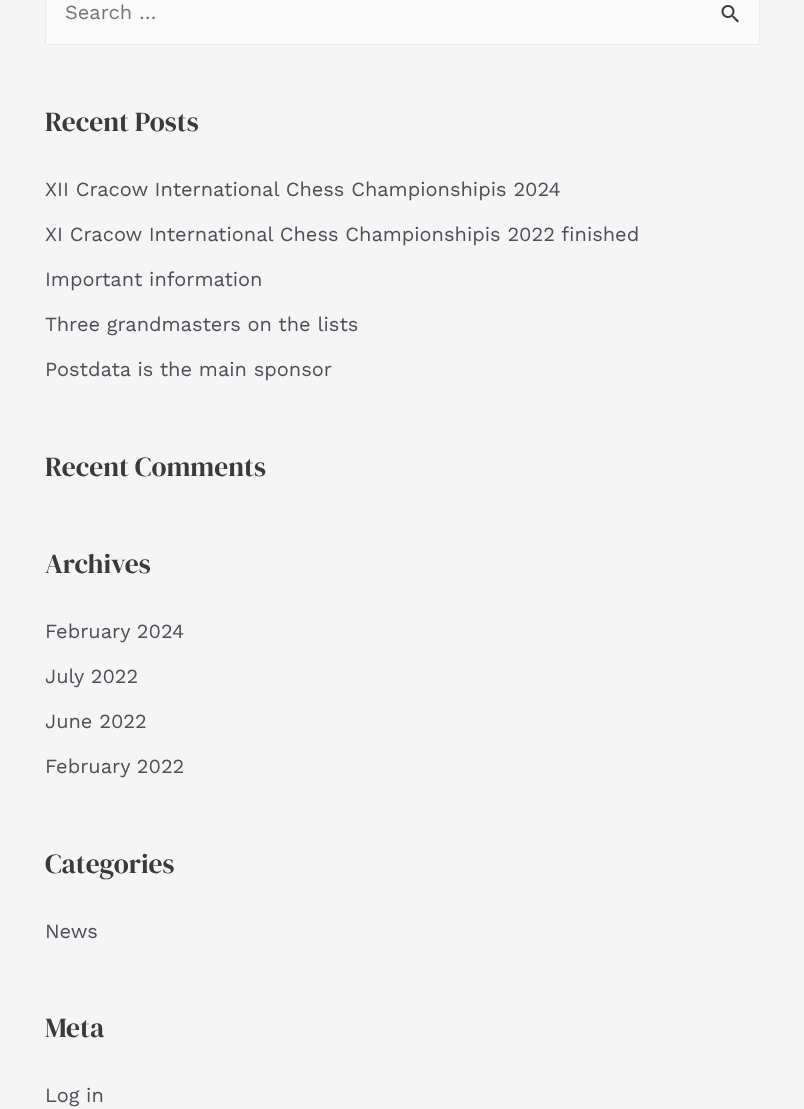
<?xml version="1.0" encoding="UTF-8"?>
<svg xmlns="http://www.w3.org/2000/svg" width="804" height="1109">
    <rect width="100%" height="100%" fill="#F5F5F5"/>
    <rect x="45.5" y="-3.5" width="714" height="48" rx="2" fill="#FAFAFA" stroke="#EAEAEA"/>
    <text x="65" y="19" font-family="Work Sans" font-size="20" fill="#757575">Search …</text>
    <image x="721" y="5" width="18" height="18" href="img_01.png"/>
    <text x="45" y="131" font-family="DM Serif Display" font-size="27.5" fill="#3A3A3A">Recent Posts</text>
    <text x="45" y="196" font-family="Work Sans" font-size="20" fill="#4B4F58">XII Cracow International Chess Championshipis 2024</text>
    <text x="45" y="241" font-family="Work Sans" font-size="20" fill="#4B4F58">XI Cracow International Chess Championshipis 2022 finished</text>
    <text x="45" y="286" font-family="Work Sans" font-size="20" fill="#4B4F58">Important information</text>
    <text x="45" y="331" font-family="Work Sans" font-size="20" fill="#4B4F58">Three grandmasters on the lists</text>
    <text x="45" y="376" font-family="Work Sans" font-size="20" fill="#4B4F58">Postdata is the main sponsor</text>
    <text x="45" y="476" font-family="DM Serif Display" font-size="27.5" fill="#3A3A3A">Recent Comments</text>
    <text x="45" y="573" font-family="DM Serif Display" font-size="27.5" fill="#3A3A3A">Archives</text>
    <text x="45" y="638" font-family="Work Sans" font-size="20" fill="#4B4F58">February 2024</text>
    <text x="45" y="683" font-family="Work Sans" font-size="20" fill="#4B4F58">July 2022</text>
    <text x="45" y="728" font-family="Work Sans" font-size="20" fill="#4B4F58">June 2022</text>
    <text x="45" y="773" font-family="Work Sans" font-size="20" fill="#4B4F58">February 2022</text>
    <text x="45" y="873" font-family="DM Serif Display" font-size="27.5" fill="#3A3A3A">Categories</text>
    <text x="45" y="938" font-family="Work Sans" font-size="20" fill="#4B4F58">News</text>
    <text x="45" y="1037" font-family="DM Serif Display" font-size="27.5" fill="#3A3A3A">Meta</text>
    <text x="45" y="1102" font-family="Work Sans" font-size="20" fill="#4B4F58">Log in</text>
</svg>
